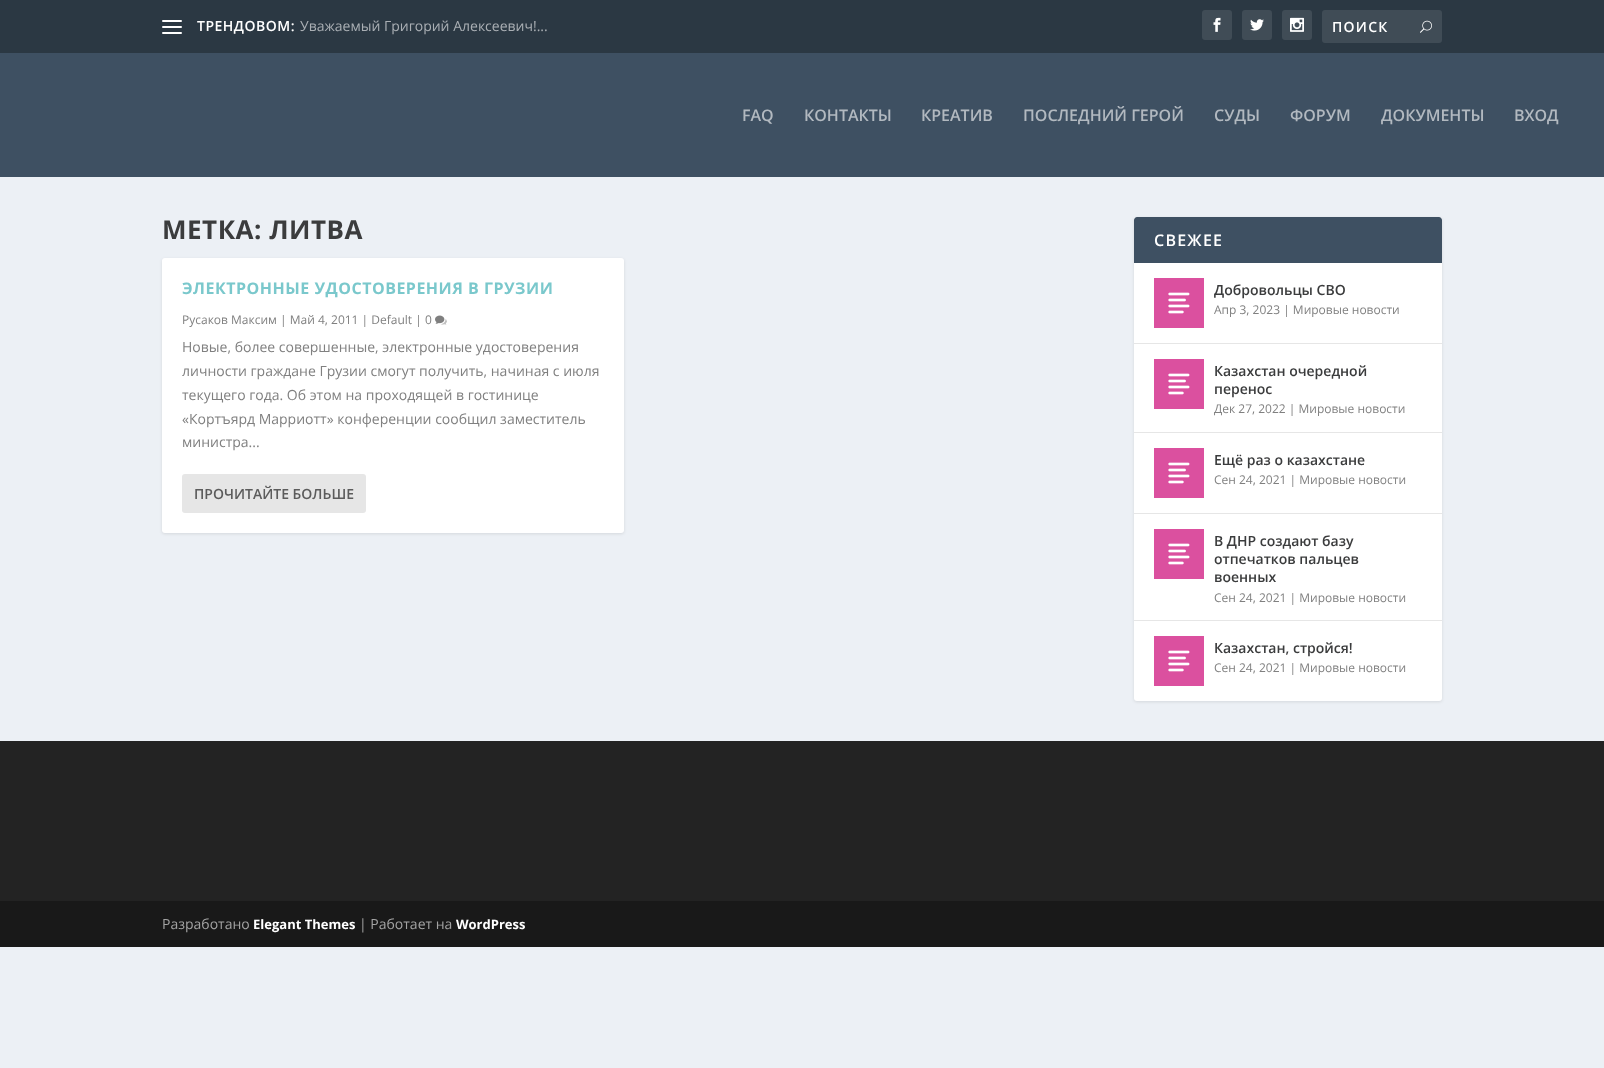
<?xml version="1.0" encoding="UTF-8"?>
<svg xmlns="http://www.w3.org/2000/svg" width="1604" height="1068">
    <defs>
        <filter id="blur1" x="-50%" y="-200%" width="200%" height="500%"><feGaussianBlur stdDeviation="1.5"/></filter>
    </defs>
    <rect width="100%" height="100%" fill="#ECF0F5"/>
    <rect x="0" y="0" width="1604" height="53" fill="#2B3843"/>
    <rect x="162" y="20" width="20" height="2" rx="1" fill="#FFFFFF"/>
    <rect x="162" y="26" width="20" height="2" rx="1" fill="#FFFFFF"/>
    <rect x="162" y="32" width="20" height="2" rx="1" fill="#FFFFFF"/>
    <text x="197" y="31" font-family="Open Sans" font-size="14" font-weight="600" letter-spacing="0.5" fill="#FFFFFF">ТРЕНДОВОМ:</text>
    <text x="300" y="31" font-family="Open Sans" font-size="14" fill="#AAAFB4">Уважаемый Григорий Алексеевич!...</text>
    <rect x="1202" y="10" width="30" height="30" rx="3" fill="#404C56"/>
    <image x="1213" y="17" width="8" height="15" href="img_01.png"/>
    <rect x="1242" y="10" width="30" height="30" rx="3" fill="#404C56"/>
    <image x="1250" y="19" width="14" height="12" href="img_02.png"/>
    <rect x="1282" y="10" width="30" height="30" rx="3" fill="#404C56"/>
    <image x="1290" y="17" width="14" height="15" href="img_03.png"/>
    <rect x="1322" y="10" width="120" height="33" rx="3" fill="#404C56"/>
    <text x="1332" y="32" font-family="Open Sans" font-size="14" font-weight="600" letter-spacing="1.25" fill="#FFFFFF">ПОИСК</text>
    <image x="1420" y="20" width="12" height="13" href="img_04.png"/>
    <rect x="0" y="53" width="1604" height="124" fill="#3E5062"/>
    <text x="742" y="121" font-family="Open Sans" font-size="16" font-weight="600" fill="#B2B9C0">FAQ</text>
    <text x="804" y="121" font-family="Open Sans" font-size="16" font-weight="600" fill="#B2B9C0">КОНТАКТЫ</text>
    <text x="921" y="121" font-family="Open Sans" font-size="16" font-weight="600" fill="#B2B9C0">КРЕАТИВ</text>
    <text x="1023" y="121" font-family="Open Sans" font-size="16" font-weight="600" fill="#B2B9C0">ПОСЛЕДНИЙ ГЕРОЙ</text>
    <text x="1214" y="121" font-family="Open Sans" font-size="16" font-weight="600" fill="#B2B9C0">СУДЫ</text>
    <text x="1290" y="121" font-family="Open Sans" font-size="16" font-weight="600" fill="#B2B9C0">ФОРУМ</text>
    <text x="1381" y="121" font-family="Open Sans" font-size="16" font-weight="600" fill="#B2B9C0">ДОКУМЕНТЫ</text>
    <text x="1514" y="121" font-family="Open Sans" font-size="16" font-weight="600" fill="#B2B9C0">ВХОД</text>
    <text x="162" y="239" font-family="Open Sans" font-size="26" font-weight="700" letter-spacing="0.5" fill="#3B3C3D">МЕТКА: ЛИТВА</text>
    <rect x="162" y="259" width="462" height="275" rx="3" fill="#000000" fill-opacity="0.1" filter="url(#blur1)"/>
    <rect x="162" y="258" width="462" height="275" rx="3" fill="#FFFFFF"/>
    <text x="182" y="294" font-family="Open Sans" font-size="16" font-weight="700" letter-spacing="0.5" fill="#7AC8CC">ЭЛЕКТРОННЫЕ УДОСТОВЕРЕНИЯ В ГРУЗИИ</text>
    <text x="182" y="324" font-family="Open Sans" font-size="12" fill="#808080">Русаков Максим | Май 4, 2011 | Default | 0</text>
    <image x="435" y="315" width="12" height="10" href="img_05.png"/>
    <text font-family="Open Sans" font-size="14" fill="#808080">
        <tspan x="182" y="352">Новые, более совершенные, электронные удостоверения</tspan>
        <tspan x="182" y="376">личности граждане Грузии смогут получить, начиная с июля</tspan>
        <tspan x="182" y="400">текущего года. Об этом на проходящей в гостинице</tspan>
        <tspan x="182" y="424">«Кортъярд Марриотт» конференции сообщил заместитель</tspan>
        <tspan x="182" y="447">министра...</tspan>
    </text>
    <rect x="182" y="474" width="184" height="39" rx="3" fill="#E6E6E6"/>
    <text x="194" y="499" font-family="Open Sans" font-size="14" font-weight="600" fill="#5C5C5C">ПРОЧИТАЙТЕ БОЛЬШЕ</text>
    <rect x="1134" y="218" width="308" height="484" rx="3" fill="#000000" fill-opacity="0.1" filter="url(#blur1)"/>
    <rect x="1134" y="217" width="308" height="484" rx="3" fill="#FFFFFF"/>
    <path d="M 1137 217 H 1439 C 1440.5 217 1442 218.5 1442 220 V 263 H 1134 V 220 C 1134 218.5 1135.5 217 1137 217 Z" fill="#3E5062"/>
    <text x="1154" y="246" font-family="Open Sans" font-size="16" font-weight="600" letter-spacing="1.25" fill="#FFFFFF">СВЕЖЕЕ</text>
    <rect x="1134" y="343" width="308" height="1" fill="#E6E6E6"/>
    <rect x="1154" y="278" width="50" height="50" fill="#DB509F"/>
    <image x="1168" y="292" width="22" height="22" href="img_06.png"/>
    <text x="1214" y="295" font-family="Open Sans" font-size="14" font-weight="600" fill="#3B3C3D">Добровольцы СВО</text>
    <text x="1214" y="314" font-family="Open Sans" font-size="12" fill="#808080">Апр 3, 2023 | Мировые новости</text>
    <rect x="1134" y="432" width="308" height="1" fill="#E6E6E6"/>
    <rect x="1154" y="359" width="50" height="50" fill="#DB509F"/>
    <image x="1168" y="373" width="22" height="22" href="img_06.png"/>
    <text font-family="Open Sans" font-size="14" font-weight="600" fill="#3B3C3D">
        <tspan x="1214" y="376">Казахстан очередной</tspan>
        <tspan x="1214" y="394">перенос</tspan>
    </text>
    <text x="1214" y="413" font-family="Open Sans" font-size="12" fill="#808080">Дек 27, 2022 | Мировые новости</text>
    <rect x="1134" y="513" width="308" height="1" fill="#E6E6E6"/>
    <rect x="1154" y="448" width="50" height="50" fill="#DB509F"/>
    <image x="1168" y="462" width="22" height="22" href="img_06.png"/>
    <text x="1214" y="465" font-family="Open Sans" font-size="14" font-weight="600" fill="#3B3C3D">Ещё раз о казахстане</text>
    <text x="1214" y="484" font-family="Open Sans" font-size="12" fill="#808080">Сен 24, 2021 | Мировые новости</text>
    <rect x="1134" y="620" width="308" height="1" fill="#E6E6E6"/>
    <rect x="1154" y="529" width="50" height="50" fill="#DB509F"/>
    <image x="1168" y="543" width="22" height="22" href="img_06.png"/>
    <text font-family="Open Sans" font-size="14" font-weight="600" fill="#3B3C3D">
        <tspan x="1214" y="546">В ДНР создают базу</tspan>
        <tspan x="1214" y="564">отпечатков пальцев</tspan>
        <tspan x="1214" y="582">военных</tspan>
    </text>
    <text x="1214" y="602" font-family="Open Sans" font-size="12" fill="#808080">Сен 24, 2021 | Мировые новости</text>
    <rect x="1154" y="636" width="50" height="50" fill="#DB509F"/>
    <image x="1168" y="650" width="22" height="22" href="img_06.png"/>
    <text x="1214" y="653" font-family="Open Sans" font-size="14" font-weight="600" fill="#3B3C3D">Казахстан, стройся!</text>
    <text x="1214" y="672" font-family="Open Sans" font-size="12" fill="#808080">Сен 24, 2021 | Мировые новости</text>
    <rect x="0" y="741" width="1604" height="160" fill="#232323"/>
    <rect x="0" y="901" width="1604" height="46" fill="#191919"/>
    <text x="162" y="929" font-family="Open Sans" font-size="14" fill="#A3A3A3">Разработано</text>
    <text x="253" y="929" font-family="Open Sans" font-size="13" font-weight="700" fill="#FFFFFF">Elegant Themes</text>
    <text x="359" y="929" font-family="Open Sans" font-size="14" fill="#A3A3A3">| Работает на</text>
    <text x="456" y="929" font-family="Open Sans" font-size="13" font-weight="700" fill="#FFFFFF">WordPress</text>
</svg>
